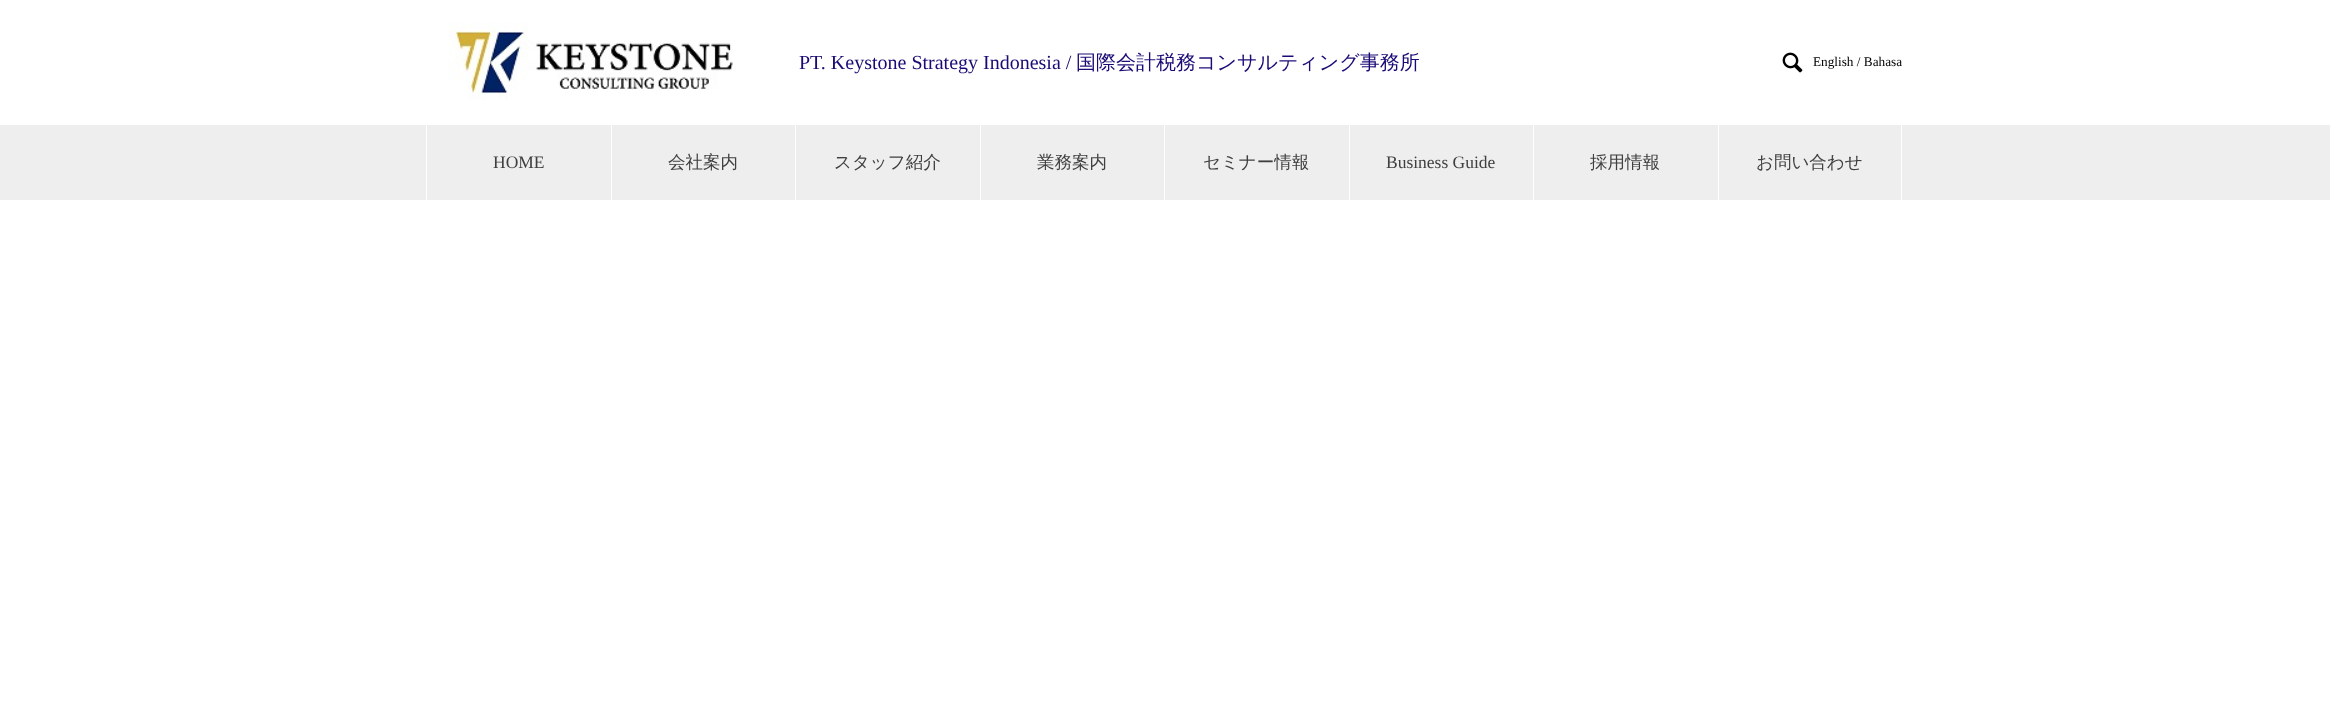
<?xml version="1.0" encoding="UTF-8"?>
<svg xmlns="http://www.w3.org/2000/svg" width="2330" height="722">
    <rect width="100%" height="100%" fill="#FFFFFF"/>
    <image x="448" y="22" width="285" height="78" href="img_01.png"/>
    <text x="799" y="69" font-family="Liberation Serif" font-size="20" fill="#190B75">PT. Keystone Strategy Indonesia /</text>
    <text x="1076" y="69" font-family="WenQuanYi Zen Hei" font-size="20" font-weight="500" fill="#190B75">国際会計税務コンサルティング事務所</text>
    <image x="1782" y="52" width="21" height="21" href="img_02.png"/>
    <text x="1813" y="66" font-family="Liberation Serif" font-size="13.25" fill="#000000">English / Bahasa</text>
    <rect x="0" y="125" width="2330" height="75" fill="#EEEEEE"/>
    <rect x="611" y="125" width="1" height="75" fill="#FFFFFF"/>
    <rect x="426" y="125" width="1" height="75" fill="#FFFFFF"/>
    <text x="493" y="168" font-family="Liberation Serif" font-size="17.5" fill="#3F3F3F">HOME</text>
    <text x="668" y="168" font-family="WenQuanYi Zen Hei" font-size="17.5" font-weight="500" fill="#3F3F3F">会社案内</text>
    <rect x="980" y="125" width="1" height="75" fill="#FFFFFF"/>
    <rect x="795" y="125" width="1" height="75" fill="#FFFFFF"/>
    <text x="834" y="168" font-family="WenQuanYi Zen Hei" font-size="17.5" font-weight="500" fill="#3F3F3F">スタッフ紹介</text>
    <rect x="1164" y="125" width="1" height="75" fill="#FFFFFF"/>
    <text x="1037" y="168" font-family="WenQuanYi Zen Hei" font-size="17.5" font-weight="500" fill="#3F3F3F">業務案内</text>
    <rect x="1349" y="125" width="1" height="75" fill="#FFFFFF"/>
    <text x="1203" y="168" font-family="WenQuanYi Zen Hei" font-size="17.5" font-weight="500" fill="#3F3F3F">セミナー情報</text>
    <text x="1386" y="168" font-family="Liberation Serif" font-size="17.5" fill="#3F3F3F">Business Guide</text>
    <rect x="1718" y="125" width="1" height="75" fill="#FFFFFF"/>
    <rect x="1533" y="125" width="1" height="75" fill="#FFFFFF"/>
    <text x="1590" y="168" font-family="WenQuanYi Zen Hei" font-size="17.5" font-weight="500" fill="#3F3F3F">採用情報</text>
    <rect x="1901" y="125" width="1" height="75" fill="#FFFFFF"/>
    <text x="1756" y="168" font-family="WenQuanYi Zen Hei" font-size="17.5" font-weight="500" fill="#3F3F3F">お問い合わせ</text>
</svg>
